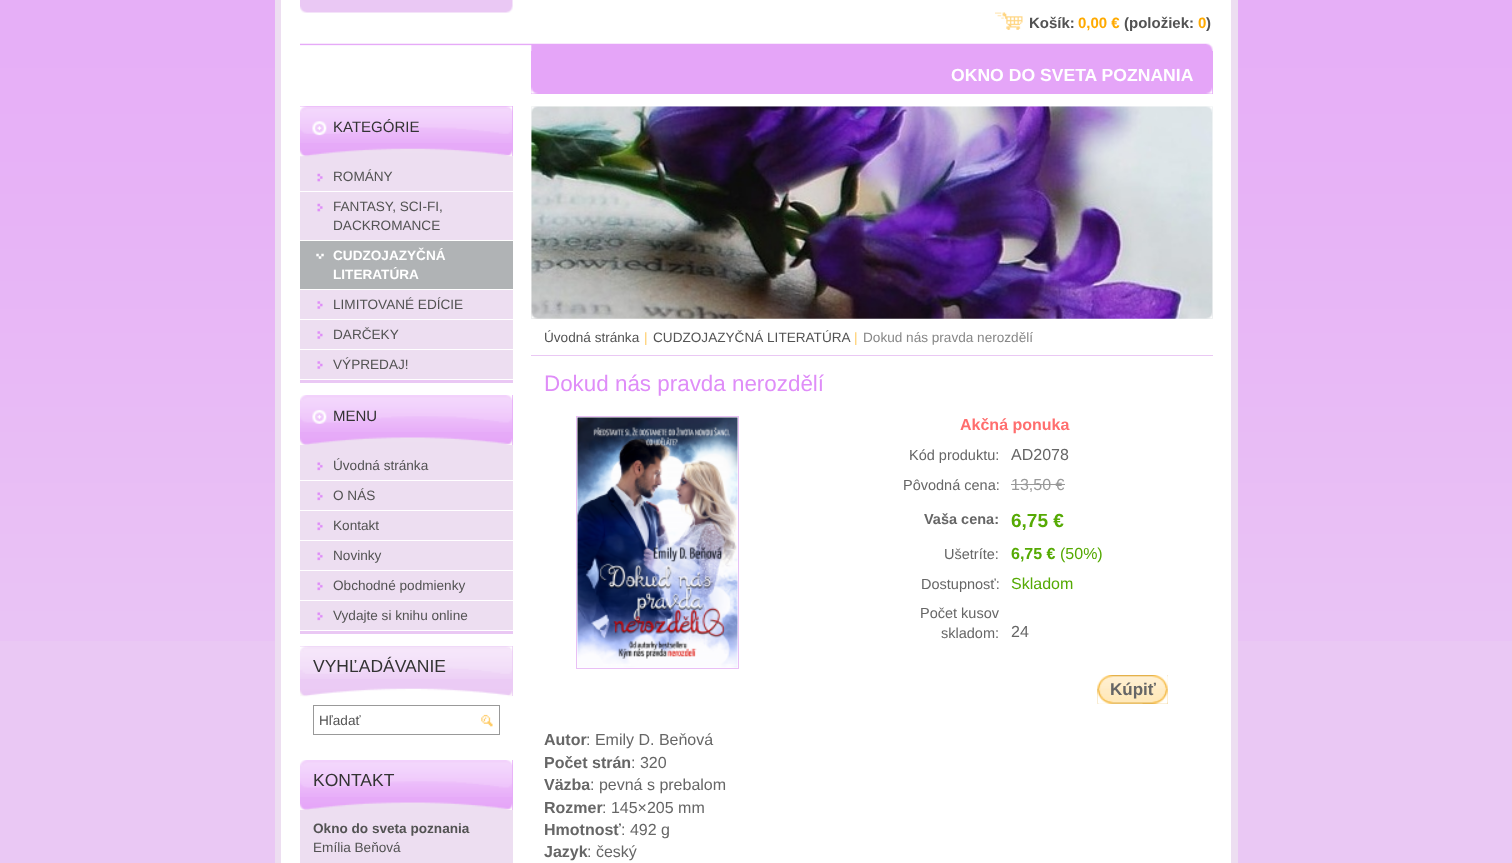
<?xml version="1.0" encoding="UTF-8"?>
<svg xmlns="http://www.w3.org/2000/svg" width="1512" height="863">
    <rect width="100%" height="100%" fill="#EAC8F4"/>
    <image x="0" y="0" width="1512" height="641" href="img_01.png"/>
    <rect x="281" y="0" width="950" height="863" fill="#FFFFFF"/>
    <image x="300" y="0" width="213" height="13" href="img_02.png"/>
    <rect x="1231" y="0" width="7" height="863" fill="#EDDEF1"/>
    <rect x="275" y="0" width="6" height="863" fill="#EDDEF1"/>
    <image x="995" y="12" width="28" height="18" href="img_03.png"/>
    <text x="1029" y="28" font-family="Liberation Sans" font-size="15" font-weight="700" fill="#535353">Košík:</text>
    <text x="1078" y="28" font-family="Liberation Sans" font-size="15" font-weight="700" fill="#FFAA00">0,00 €</text>
    <text x="1124" y="28" font-family="Liberation Sans" font-size="15" font-weight="700" fill="#535353">(položiek:</text>
    <text x="1198" y="28" font-family="Liberation Sans" font-size="15" font-weight="700" fill="#FFAA00">0</text>
    <text x="1206" y="28" font-family="Liberation Sans" font-size="15" font-weight="700" fill="#535353">)</text>
    <image x="300" y="43" width="913" height="9" href="img_04.png"/>
    <rect x="531" y="51" width="682" height="43" fill="#E5A5F8"/>
    <image x="531" y="87" width="682" height="7" href="img_05.png"/>
    <text x="951" y="81" font-family="Liberation Sans" font-size="17.6" font-weight="700" fill="#FFFFFF">OKNO DO SVETA POZNANIA</text>
    <rect x="300" y="380" width="213" height="3" fill="#EAC8F4"/>
    <rect x="300" y="156" width="213" height="223" fill="#EDDEF1"/>
    <rect x="300" y="106" width="213" height="50" fill="#E6AAF8"/>
    <image x="300" y="106" width="213" height="37" href="img_06.png"/>
    <image x="300" y="148" width="213" height="9" href="img_07.png"/>
    <text x="333" y="132" font-family="Liberation Sans" font-size="15" fill="#333333">KATEGÓRIE</text>
    <image x="317" y="173" width="6" height="9" href="img_08.png"/>
    <rect x="300" y="191" width="213" height="1" fill="#FFFFFF"/>
    <text x="333" y="181" font-family="Liberation Sans" font-size="13.6" fill="#535353">ROMÁNY</text>
    <image x="317" y="203" width="6" height="9" href="img_08.png"/>
    <rect x="300" y="240" width="213" height="1" fill="#FFFFFF"/>
    <text font-family="Liberation Sans" font-size="13.6" fill="#535353">
        <tspan x="333" y="211">FANTASY, SCI-FI,</tspan>
        <tspan x="333" y="230">DACKROMANCE</tspan>
    </text>
    <rect x="300" y="241" width="213" height="48" fill="#B0B3B5"/>
    <image x="316" y="253" width="8" height="6" href="img_09.png"/>
    <rect x="300" y="289" width="213" height="1" fill="#FFFFFF"/>
    <text font-family="Liberation Sans" font-size="13.6" font-weight="700" fill="#FFFFFF">
        <tspan x="333" y="260">CUDZOJAZYČNÁ</tspan>
        <tspan x="333" y="279">LITERATÚRA</tspan>
    </text>
    <image x="317" y="301" width="6" height="8" href="img_10.png"/>
    <rect x="300" y="319" width="213" height="1" fill="#FFFFFF"/>
    <text x="333" y="309" font-family="Liberation Sans" font-size="13.6" fill="#535353">LIMITOVANÉ EDÍCIE</text>
    <image x="317" y="331" width="6" height="8" href="img_10.png"/>
    <rect x="300" y="349" width="213" height="1" fill="#FFFFFF"/>
    <text x="333" y="339" font-family="Liberation Sans" font-size="13.6" fill="#535353">DARČEKY</text>
    <image x="317" y="361" width="6" height="8" href="img_10.png"/>
    <text x="333" y="369" font-family="Liberation Sans" font-size="13.6" fill="#535353">VÝPREDAJ!</text>
    <rect x="300" y="631" width="213" height="3" fill="#EAC8F4"/>
    <rect x="300" y="445" width="213" height="185" fill="#EDDEF1"/>
    <rect x="300" y="395" width="213" height="50" fill="#E6AAF8"/>
    <image x="300" y="395" width="213" height="37" href="img_11.png"/>
    <image x="300" y="437" width="213" height="8" href="img_12.png"/>
    <text x="333" y="421" font-family="Liberation Sans" font-size="15" fill="#333333">MENU</text>
    <image x="317" y="462" width="6" height="9" href="img_13.png"/>
    <rect x="300" y="480" width="213" height="1" fill="#FFFFFF"/>
    <text x="333" y="470" font-family="Liberation Sans" font-size="13.6" fill="#535353">Úvodná stránka</text>
    <image x="317" y="492" width="6" height="9" href="img_13.png"/>
    <rect x="300" y="510" width="213" height="1" fill="#FFFFFF"/>
    <text x="333" y="500" font-family="Liberation Sans" font-size="13.6" fill="#535353">O NÁS</text>
    <image x="317" y="522" width="6" height="9" href="img_13.png"/>
    <rect x="300" y="540" width="213" height="1" fill="#FFFFFF"/>
    <text x="333" y="530" font-family="Liberation Sans" font-size="13.6" fill="#535353">Kontakt</text>
    <image x="317" y="552" width="6" height="9" href="img_13.png"/>
    <rect x="300" y="570" width="213" height="1" fill="#FFFFFF"/>
    <text x="333" y="560" font-family="Liberation Sans" font-size="13.6" fill="#535353">Novinky</text>
    <image x="317" y="582" width="6" height="9" href="img_13.png"/>
    <rect x="300" y="600" width="213" height="1" fill="#FFFFFF"/>
    <text x="333" y="590" font-family="Liberation Sans" font-size="13.6" fill="#535353">Obchodné podmienky</text>
    <image x="317" y="612" width="6" height="9" href="img_13.png"/>
    <text x="333" y="620" font-family="Liberation Sans" font-size="13.6" fill="#535353">Vydajte si knihu online</text>
    <rect x="300" y="646" width="213" height="50" fill="#EBCBF5"/>
    <image x="300" y="646" width="213" height="33" href="img_14.png"/>
    <image x="300" y="688" width="213" height="9" href="img_15.png"/>
    <text x="313" y="672" font-family="Liberation Sans" font-size="17.5" fill="#333333">VYHĽADÁVANIE</text>
    <rect x="313.5" y="705.5" width="186" height="29" fill="none" stroke="#999999"/>
    <text x="319" y="725" font-family="Liberation Sans" font-size="13.6" fill="#535353">Hľadať</text>
    <image x="481" y="714" width="12" height="13" href="img_16.png"/>
    <rect x="300" y="810" width="213" height="53" fill="#EDDEF1"/>
    <rect x="300" y="760" width="213" height="50" fill="#E6AAF8"/>
    <image x="300" y="760" width="213" height="37" href="img_17.png"/>
    <image x="300" y="802" width="213" height="8" href="img_18.png"/>
    <text x="313" y="786" font-family="Liberation Sans" font-size="17.5" fill="#333333">KONTAKT</text>
    <text x="313" y="833" font-family="Liberation Sans" font-size="13.6" font-weight="700" fill="#535353">Okno do sveta poznania</text>
    <text x="313" y="852" font-family="Liberation Sans" font-size="13.6" fill="#535353">Emília Beňová</text>
    <image x="531" y="106" width="682" height="213" href="img_19.png"/>
    <image x="531" y="106" width="682" height="213" href="img_20.png"/>
    <rect x="531" y="355" width="682" height="1" fill="#EAC8F4"/>
    <text x="544" y="342" font-family="Liberation Sans" font-size="13.6" fill="#535353">Úvodná stránka</text>
    <text x="644" y="342" font-family="Liberation Sans" font-size="13.6" fill="#FFCC66">|</text>
    <text x="653" y="342" font-family="Liberation Sans" font-size="13.6" fill="#535353">CUDZOJAZYČNÁ LITERATÚRA</text>
    <text x="854" y="342" font-family="Liberation Sans" font-size="13.6" fill="#FFCC66">|</text>
    <text x="863" y="342" font-family="Liberation Sans" font-size="13.6" fill="#878787">Dokud nás pravda nerozdělí</text>
    <text x="544" y="391" font-family="Liberation Sans" font-size="22.4" fill="#DF8DF8">Dokud nás pravda nerozdělí</text>
    <rect x="576.5" y="416.5" width="162" height="252" fill="none" stroke="#E9BFF5"/>
    <image x="577" y="417" width="161" height="251" href="img_21.png"/>
    <text x="960" y="430" font-family="Liberation Sans" font-size="16" font-weight="700" fill="#FF6E6E">Akčná ponuka</text>
    <text x="909" y="460" font-family="Liberation Sans" font-size="14.5" fill="#666666">Kód produktu:</text>
    <text x="1011" y="460" font-family="Liberation Sans" font-size="16" fill="#666666">AD2078</text>
    <text x="903" y="490" font-family="Liberation Sans" font-size="14.5" fill="#666666">Pôvodná cena:</text>
    <text x="1011" y="490" font-family="Liberation Sans" font-size="16" fill="#999999">13,50 €</text>
    <rect x="1011" y="484" width="54" height="1" fill="#999999"/>
    <text x="924" y="524" font-family="Liberation Sans" font-size="14.5" font-weight="700" fill="#666666">Vaša cena:</text>
    <text x="1011" y="527" font-family="Liberation Sans" font-size="19" font-weight="700" fill="#56AA04">6,75 €</text>
    <text x="944" y="559" font-family="Liberation Sans" font-size="14.5" fill="#666666">Ušetríte:</text>
    <text x="1011" y="559" font-family="Liberation Sans" font-size="16" font-weight="700" fill="#56AA04">6,75 €</text>
    <text x="1060" y="559" font-family="Liberation Sans" font-size="16" fill="#56AA04">(50%)</text>
    <text x="921" y="589" font-family="Liberation Sans" font-size="14.5" fill="#666666">Dostupnosť:</text>
    <text x="1011" y="589" font-family="Liberation Sans" font-size="16" fill="#56AA04">Skladom</text>
    <text x="920" y="618" font-family="Liberation Sans" font-size="14.5" fill="#666666">Počet kusov</text>
    <text x="941" y="638" font-family="Liberation Sans" font-size="14.5" fill="#666666">skladom:</text>
    <text x="1011" y="637" font-family="Liberation Sans" font-size="16" fill="#666666">24</text>
    <image x="1097" y="675" width="71" height="29" href="img_22.png"/>
    <image x="1152" y="675" width="16" height="29" href="img_23.png"/>
    <image x="1097" y="688" width="71" height="16" href="img_24.png"/>
    <image x="1142" y="688" width="26" height="16" href="img_25.png"/>
    <text x="1110" y="695" font-family="Liberation Sans" font-size="17" font-weight="700" fill="#666666">Kúpiť</text>
    <text x="544" y="745" font-family="Liberation Sans" font-size="16" font-weight="700" fill="#666666">Autor</text>
    <text x="586" y="745" font-family="Liberation Sans" font-size="16" fill="#666666">: Emily D. Beňová</text>
    <text x="544" y="768" font-family="Liberation Sans" font-size="16" font-weight="700" fill="#666666">Počet strán</text>
    <text x="631" y="768" font-family="Liberation Sans" font-size="16" fill="#666666">: 320</text>
    <text x="544" y="790" font-family="Liberation Sans" font-size="16" font-weight="700" fill="#666666">Väzba</text>
    <text x="590" y="790" font-family="Liberation Sans" font-size="16" fill="#666666">: pevná s prebalom</text>
    <text x="544" y="813" font-family="Liberation Sans" font-size="16" font-weight="700" fill="#666666">Rozmer</text>
    <text x="602" y="813" font-family="Liberation Sans" font-size="16" fill="#666666">: 145×205 mm</text>
    <text x="544" y="835" font-family="Liberation Sans" font-size="16" font-weight="700" fill="#666666">Hmotnosť</text>
    <text x="621" y="835" font-family="Liberation Sans" font-size="16" fill="#666666">: 492 g</text>
    <text x="544" y="857" font-family="Liberation Sans" font-size="16" font-weight="700" fill="#666666">Jazyk</text>
    <text x="587" y="857" font-family="Liberation Sans" font-size="16" fill="#666666">: český</text>
</svg>
